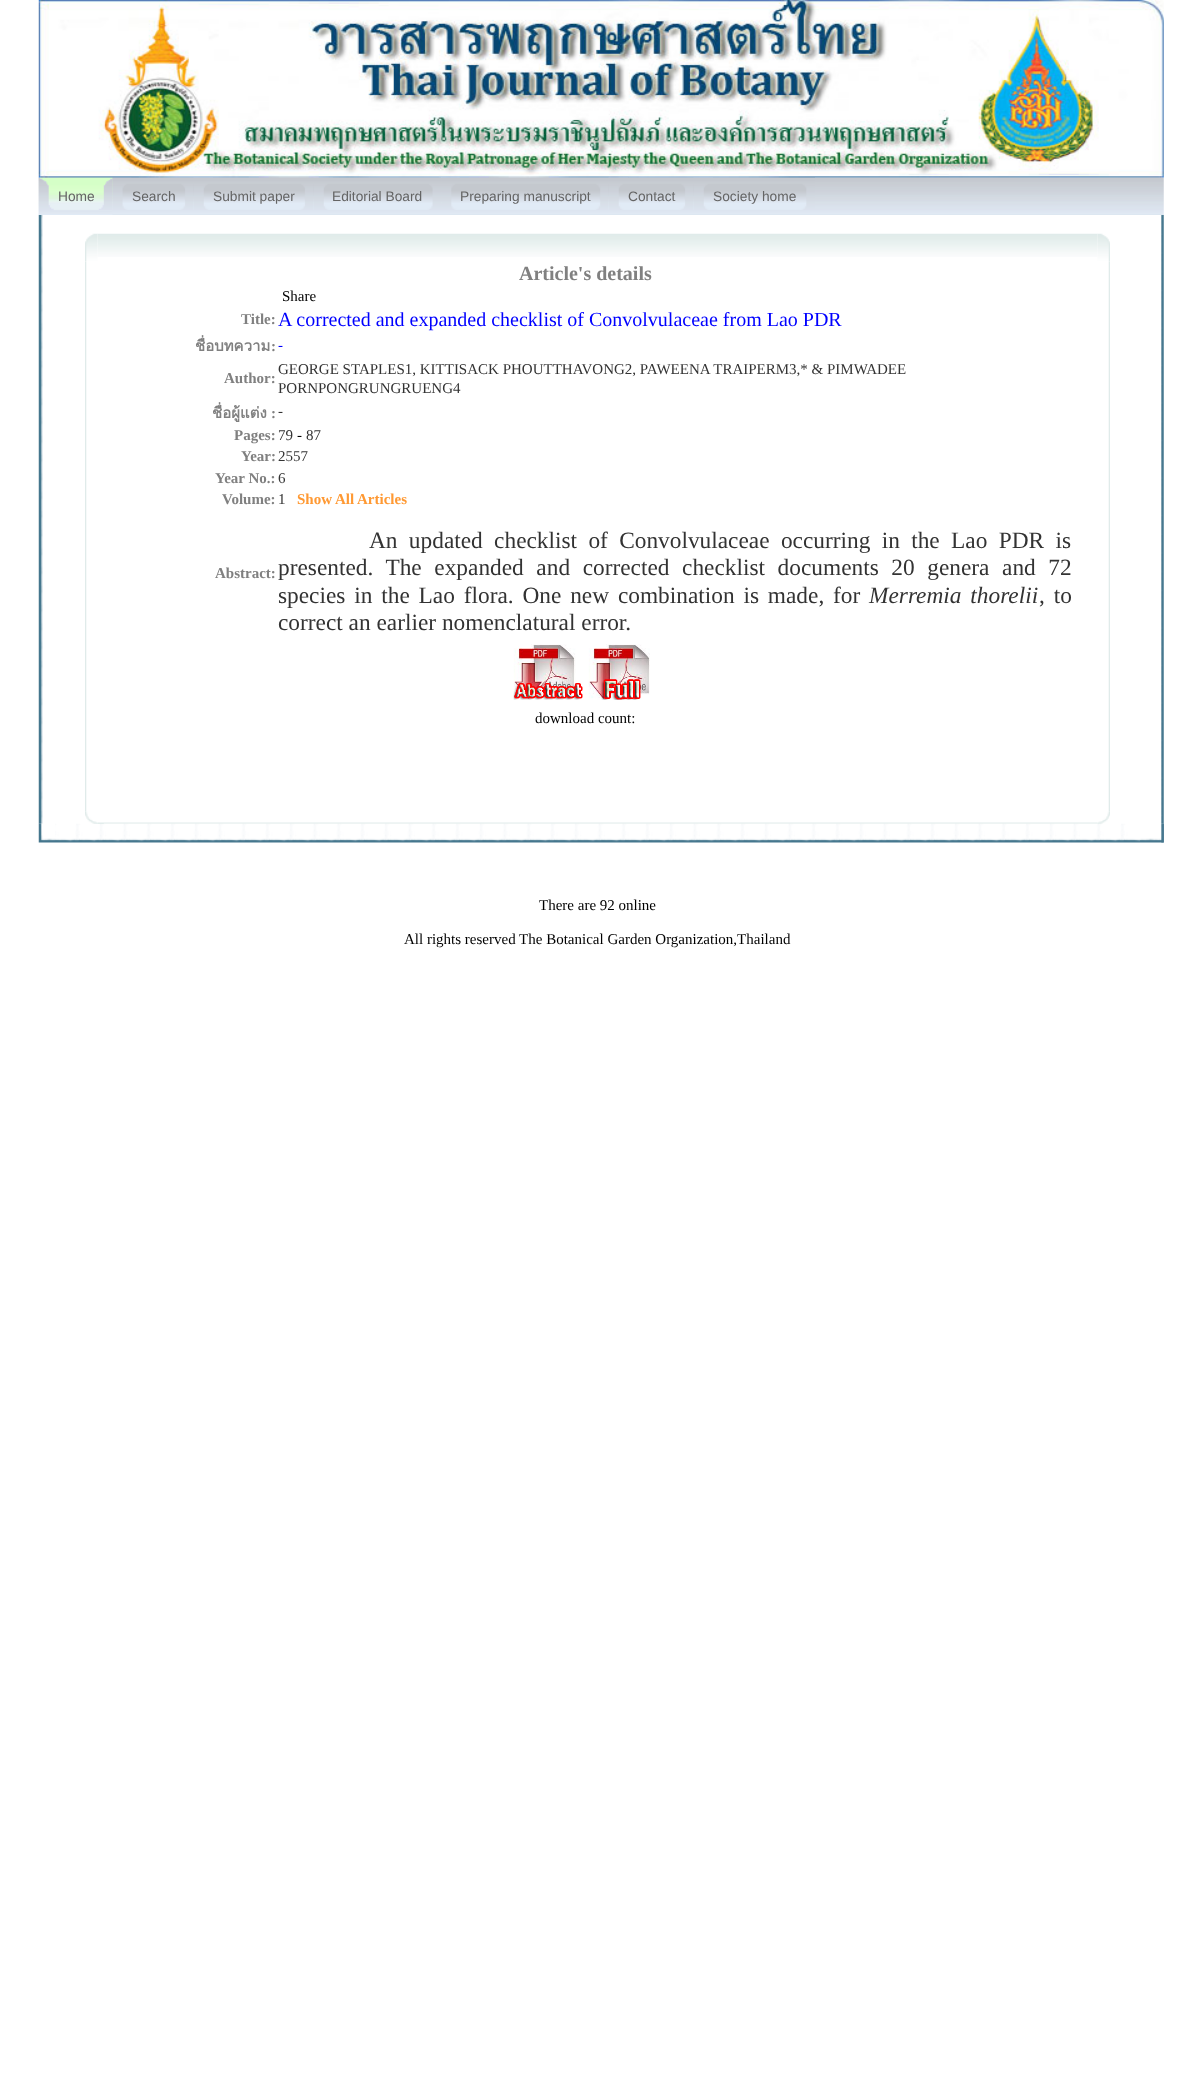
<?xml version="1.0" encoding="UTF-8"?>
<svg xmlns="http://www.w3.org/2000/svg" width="1202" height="2098">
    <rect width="100%" height="100%" fill="#FFFFFF"/>
    <image x="38" y="177" width="1126" height="38" href="img_02.png"/>
    <image x="38" y="177" width="75" height="38" href="img_03.png"/>
    <image x="58" y="177" width="55" height="33" href="img_04.png"/>
    <image x="112" y="177" width="82" height="33" href="img_05.png"/>
    <image x="131" y="177" width="63" height="33" href="img_06.png"/>
    <image x="194" y="177" width="120" height="33" href="img_07.png"/>
    <image x="213" y="177" width="101" height="33" href="img_08.png"/>
    <image x="314" y="177" width="127" height="33" href="img_09.png"/>
    <image x="333" y="177" width="108" height="33" href="img_10.png"/>
    <image x="441" y="177" width="168" height="33" href="img_11.png"/>
    <image x="460" y="177" width="149" height="33" href="img_12.png"/>
    <image x="609" y="177" width="85" height="33" href="img_13.png"/>
    <image x="628" y="177" width="66" height="33" href="img_14.png"/>
    <image x="694" y="177" width="121" height="33" href="img_15.png"/>
    <image x="713" y="177" width="102" height="33" href="img_16.png"/>
    <image x="38" y="0" width="1126" height="178" href="img_01.png"/>
    <text x="58" y="201" font-family="Liberation Sans" font-size="13.75" fill="#646464">Home</text>
    <text x="132" y="201" font-family="Liberation Sans" font-size="13.75" fill="#646464">Search</text>
    <text x="213" y="201" font-family="Liberation Sans" font-size="13.75" fill="#646464">Submit paper</text>
    <text x="332" y="201" font-family="Liberation Sans" font-size="13.75" fill="#646464">Editorial Board</text>
    <text x="460" y="201" font-family="Liberation Sans" font-size="13.75" fill="#646464">Preparing manuscript</text>
    <text x="628" y="201" font-family="Liberation Sans" font-size="13.75" fill="#646464">Contact</text>
    <text x="713" y="201" font-family="Liberation Sans" font-size="13.75" fill="#646464">Society home</text>
    <image x="38" y="215" width="5" height="609" href="img_17.png"/>
    <image x="97" y="233" width="1001" height="24" href="img_19.png"/>
    <image x="85" y="233" width="13" height="28" href="img_18.png"/>
    <image x="1097" y="233" width="13" height="28" href="img_20.png"/>
    <image x="85" y="261" width="2" height="551" href="img_21.png"/>
    <text x="519" y="280" font-family="Liberation Serif" font-size="20" font-weight="700" fill="#808080">Article's details</text>
    <text x="282" y="301" font-family="Liberation Serif" font-size="15" fill="#000000">Share</text>
    <text x="241" y="324" font-family="Liberation Serif" font-size="15" font-weight="700" fill="#808080">Title:</text>
    <text x="278" y="326" font-family="Liberation Serif" font-size="20" fill="#0000FF">A corrected and expanded checklist of Convolvulaceae from Lao PDR</text>
    <text x="195" y="351" font-family="Loma" font-size="15" font-weight="700" fill="#808080">ชื่อบทความ</text>
    <text x="271" y="351" font-family="Liberation Serif" font-size="15" font-weight="700" fill="#808080">:</text>
    <text x="278" y="350" font-family="Liberation Serif" font-size="15" fill="#0000FF">-</text>
    <text x="224" y="383" font-family="Liberation Serif" font-size="15" font-weight="700" fill="#808080">Author:</text>
    <text font-family="Liberation Serif" font-size="15" fill="#333333">
        <tspan x="278" y="374">GEORGE STAPLES1, KITTISACK PHOUTTHAVONG2, PAWEENA TRAIPERM3,* &amp; PIMWADEE</tspan>
        <tspan x="278" y="393">PORNPONGRUNGRUENG4</tspan>
    </text>
    <text x="212" y="418" font-family="Loma" font-size="15" font-weight="700" fill="#808080">ชื่อผู้แต่ง</text>
    <text x="271" y="418" font-family="Liberation Serif" font-size="15" font-weight="700" fill="#808080">:</text>
    <text x="278" y="416" font-family="Liberation Serif" font-size="15" fill="#333333">-</text>
    <text x="234" y="440" font-family="Liberation Serif" font-size="15" font-weight="700" fill="#808080">Pages:</text>
    <text x="278" y="440" font-family="Liberation Serif" font-size="15" fill="#333333">79</text>
    <text x="297" y="440" font-family="Liberation Serif" font-size="15" fill="#000000">-</text>
    <text x="306" y="440" font-family="Liberation Serif" font-size="15" fill="#333333">87</text>
    <text x="241" y="461" font-family="Liberation Serif" font-size="15" font-weight="700" fill="#808080">Year:</text>
    <text x="278" y="461" font-family="Liberation Serif" font-size="15" fill="#333333">2557</text>
    <text x="215" y="483" font-family="Liberation Serif" font-size="15" font-weight="700" fill="#808080">Year No.:</text>
    <text x="278" y="483" font-family="Liberation Serif" font-size="15" fill="#333333">6</text>
    <text x="222" y="504" font-family="Liberation Serif" font-size="15" font-weight="700" fill="#808080">Volume:</text>
    <text x="278" y="504" font-family="Liberation Serif" font-size="15" fill="#333333">1</text>
    <text x="297" y="504" font-family="Liberation Serif" font-size="15" font-weight="700" fill="#FF9933">Show All Articles</text>
    <text x="215" y="578" font-family="Liberation Serif" font-size="15" font-weight="700" fill="#808080">Abstract:</text>
    <text x="369" y="548" word-spacing="5.5" font-family="Liberation Serif" font-size="23.35" fill="#333333">An updated checklist of Convolvulaceae occurring in the Lao PDR is</text>
    <text font-family="Liberation Serif" font-size="23.35" fill="#333333">
        <tspan x="278" y="575" word-spacing="6.75">presented. The expanded and corrected checklist documents 20 genera and 72</tspan>
        <tspan x="278" y="603" word-spacing="3">species in the Lao flora. One new combination is made, for</tspan>
    </text>
    <text x="869" y="603" word-spacing="3" font-family="Liberation Serif" font-size="23.35" font-style="italic" fill="#333333">Merremia thorelii</text>
    <text x="1039" y="603" word-spacing="3" font-family="Liberation Serif" font-size="23.35" fill="#333333">, to</text>
    <text x="278" y="630" font-family="Liberation Serif" font-size="23.35" fill="#333333">correct an earlier nomenclatural error.</text>
    <image x="513" y="644" width="70" height="56" href="img_22.png"/>
    <image x="588" y="644" width="62" height="56" href="img_23.png"/>
    <text x="535" y="723" font-family="Liberation Serif" font-size="15" fill="#000000">download count:</text>
    <image x="1108" y="261" width="2" height="551" href="img_24.png"/>
    <image x="97" y="822" width="1001" height="2" href="img_26.png"/>
    <image x="55" y="823" width="1085" height="20" href="img_31.png"/>
    <image x="85" y="811" width="13" height="13" href="img_25.png"/>
    <image x="97" y="823" width="7" height="1" href="img_27.png"/>
    <image x="1097" y="811" width="13" height="13" href="img_28.png"/>
    <image x="1161" y="215" width="3" height="609" href="img_29.png"/>
    <image x="38" y="823" width="17" height="20" href="img_30.png"/>
    <image x="1161" y="823" width="3" height="20" href="img_32.png"/>
    <image x="1140" y="823" width="24" height="20" href="img_33.png"/>
    <text x="539" y="910" font-family="Liberation Serif" font-size="15" fill="#000000">There are 92 online</text>
    <text x="404" y="944" font-family="Liberation Serif" font-size="15" fill="#000000">All rights reserved The Botanical Garden Organization,Thailand</text>
</svg>
